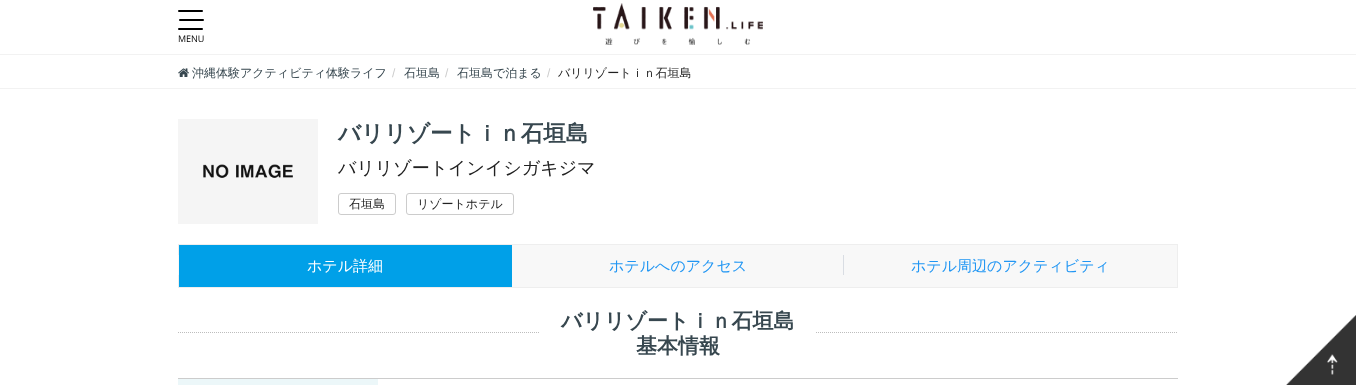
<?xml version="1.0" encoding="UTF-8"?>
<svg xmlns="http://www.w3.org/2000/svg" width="1356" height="385">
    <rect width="100%" height="100%" fill="#FFFFFF"/>
    <rect x="0" y="54" width="1356" height="1" fill="#F2F2F2"/>
    <rect x="178" y="10" width="25" height="2" rx="1" fill="#000000"/>
    <rect x="179" y="19" width="25" height="2" rx="1" fill="#000000"/>
    <rect x="178" y="28" width="25" height="2" rx="1" fill="#000000"/>
    <text x="178" y="42" font-family="Open Sans" font-size="9" fill="#000000">MENU</text>
    <image x="593" y="3" width="170" height="42" href="img_01.png"/>
    <rect x="0" y="88" width="1356" height="1" fill="#F2F2F2"/>
    <image x="178" y="68" width="11" height="9" href="img_02.png"/>
    <text x="192" y="77" font-family="WenQuanYi Zen Hei" font-size="12" font-weight="500" fill="#37474F">沖縄体験アクティビティ体験ライフ</text>
    <text x="392" y="77" font-family="Liberation Sans" font-size="12" fill="#CCCCCC">/</text>
    <text x="404" y="77" font-family="WenQuanYi Zen Hei" font-size="12" font-weight="500" fill="#37474F">石垣島</text>
    <text x="445" y="77" font-family="Liberation Sans" font-size="12" fill="#CCCCCC">/</text>
    <text x="457" y="77" font-family="WenQuanYi Zen Hei" font-size="12" font-weight="500" fill="#37474F">石垣島で泊まる</text>
    <text x="547" y="77" font-family="Liberation Sans" font-size="12" fill="#CCCCCC">/</text>
    <text x="558" y="77" font-family="WenQuanYi Zen Hei" font-size="12" font-weight="500" fill="#212121">バリリゾートｉｎ石垣島</text>
    <image x="178" y="119" width="140" height="105" href="img_03.png"/>
    <text x="338" y="141" font-family="WenQuanYi Zen Hei" font-size="22.5" font-weight="700" fill="#37474F">バリリゾートｉｎ石垣島</text>
    <text x="338" y="174" font-family="WenQuanYi Zen Hei" font-size="18" font-weight="500" fill="#212121">バリリゾートインイシガキジマ</text>
    <rect x="338.5" y="193.5" width="57" height="21" rx="2.5" fill="none" stroke="#CCCCCC"/>
    <text x="349" y="208" font-family="WenQuanYi Zen Hei" font-size="12" font-weight="500" fill="#212121">石垣島</text>
    <rect x="406.5" y="193.5" width="107" height="21" rx="2.5" fill="none" stroke="#CCCCCC"/>
    <text x="417" y="208" font-family="WenQuanYi Zen Hei" font-size="12" font-weight="500" fill="#212121">リゾートホテル</text>
    <rect x="178.5" y="244.5" width="999" height="43" fill="none" stroke="#EEEEEE"/>
    <rect x="179" y="245" width="333" height="42" fill="#00A0E8"/>
    <rect x="178" y="255" width="1" height="20" fill="#F8F8F8"/>
    <text x="307" y="271" font-family="WenQuanYi Zen Hei" font-size="15" font-weight="500" fill="#FFFFFF">ホテル詳細</text>
    <rect x="512" y="245" width="665" height="42" fill="#F8F8F8"/>
    <text x="609" y="271" font-family="WenQuanYi Zen Hei" font-size="15" font-weight="500" fill="#2196F3">ホテルへのアクセス</text>
    <rect x="843" y="255" width="1" height="20" fill="#D9DDE3"/>
    <text x="911" y="271" font-family="WenQuanYi Zen Hei" font-size="15" font-weight="500" fill="#2196F3">ホテル周辺のアクティビティ</text>
    <text x="561" y="328" font-family="WenQuanYi Zen Hei" font-size="21" font-weight="700" fill="#37474F">バリリゾートｉｎ石垣島</text>
    <path d="M 178 332.5 H 540" fill="none" stroke="#BDBDBD" stroke-dasharray="1 1"/>
    <path d="M 816 332.5 H 1178" fill="none" stroke="#BDBDBD" stroke-dasharray="1 1"/>
    <text x="636" y="353" font-family="WenQuanYi Zen Hei" font-size="21" font-weight="700" fill="#37474F">基本情報</text>
    <rect x="178" y="378" width="1000" height="1" fill="#CCCCCC"/>
    <rect x="178" y="379" width="200" height="6" fill="#ECF7F9"/>
    <image x="1286" y="315" width="70" height="70" href="img_04.png"/>
</svg>
